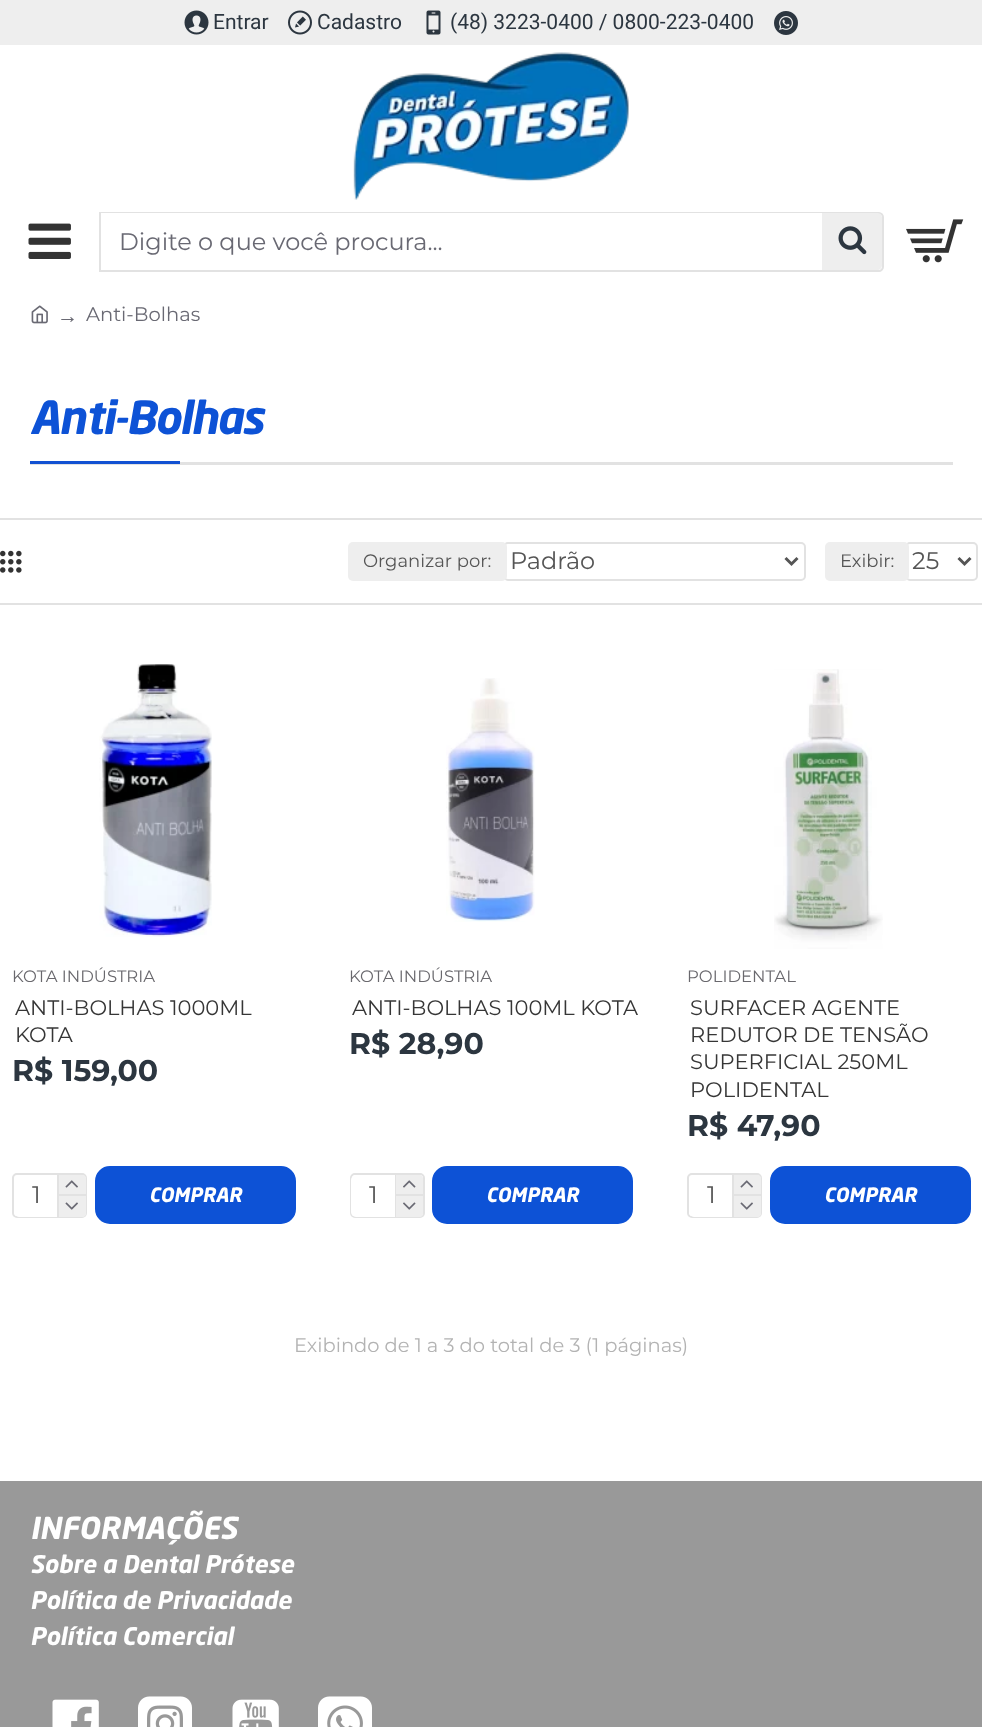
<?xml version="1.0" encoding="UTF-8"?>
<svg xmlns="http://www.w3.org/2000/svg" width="982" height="1727">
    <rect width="100%" height="100%" fill="#FFFFFF"/>
    <rect x="0" y="0" width="982" height="45" fill="#EEEEEE"/>
    <image x="184" y="10" width="25" height="25" href="img_01.png"/>
    <text x="213" y="29" font-family="Roboto" font-size="21" fill="#2C3640">Entrar</text>
    <image x="288" y="10" width="24" height="25" href="img_02.png"/>
    <text x="317" y="29" font-family="Roboto" font-size="21" fill="#2C3640">Cadastro</text>
    <image x="426" y="10" width="15" height="25" href="img_03.png"/>
    <text x="450" y="29" font-family="Roboto" font-size="21" fill="#2C3640">(48) 3223-0400 / 0800-223-0400</text>
    <image x="774" y="11" width="24" height="24" href="img_04.png"/>
    <image x="353" y="52" width="276" height="148" href="img_05.png"/>
    <image x="28" y="223" width="43" height="36" href="img_06.png"/>
    <path d="M 100 213 H 879 C 881 213 883 215 883 217 V 267 C 883 269 881 271 879 271 H 100 Z" fill="none" stroke="#E2E2E2" stroke-width="2"/>
    <rect x="101" y="213" width="721" height="1" fill="#FFFFFF"/>
    <text x="119" y="250" font-family="Montserrat" font-size="24" fill="#696973">Digite o que você procura...</text>
    <path d="M 822 213 H 877 C 880 213 882 215 882 218 V 265 C 882 268 880 270 877 270 H 822 Z" fill="#EEEEEE"/>
    <image x="838" y="226" width="29" height="29" href="img_07.png"/>
    <image x="906" y="219" width="58" height="44" href="img_08.png"/>
    <image x="31" y="305" width="17" height="19" href="img_09.png"/>
    <text x="57" y="323" font-family="Liberation Serif" font-size="21" fill="#696973">→</text>
    <text x="86" y="321" font-family="Montserrat" font-size="19.5" fill="#696973">Anti-Bolhas</text>
    <rect x="30" y="462" width="923" height="3" fill="#E2E2E2"/>
    <text x="30" y="434" font-family="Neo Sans" font-size="45" font-weight="700" font-style="italic" letter-spacing="-1.5" fill="#0D52D6">Anti-Bolhas</text>
    <rect x="30" y="461" width="150" height="3" fill="#1251D2"/>
    <rect x="0" y="518" width="982" height="2" fill="#E2E2E2"/>
    <rect x="0" y="603" width="982" height="2" fill="#E2E2E2"/>
    <image x="0" y="550" width="22" height="23" href="img_10.png"/>
    <rect x="504" y="543" width="301" height="37" rx="4" fill="none" stroke="#E2E2E2" stroke-width="2"/>
    <rect x="348" y="542" width="159" height="39" rx="5" fill="#EEEEEE"/>
    <text x="363" y="567" font-family="Montserrat" font-size="18" fill="#555555">Organizar por:</text>
    <path d="M 785.5 558 L 791.5 564 L 797.5 558" fill="none" stroke="#555555" stroke-width="3"/>
    <text x="510" y="569" font-family="Montserrat" font-size="24" fill="#555555">Padrão</text>
    <rect x="906" y="543" width="71" height="37" rx="4" fill="none" stroke="#E2E2E2" stroke-width="2"/>
    <rect x="825" y="542" width="84" height="39" rx="5" fill="#EEEEEE"/>
    <text x="840" y="567" font-family="Montserrat" font-size="18" fill="#555555">Exibir:</text>
    <path d="M 958.5 558 L 964.5 564 L 970.5 558" fill="none" stroke="#555555" stroke-width="3"/>
    <text x="912" y="569" font-family="Montserrat" font-size="24" fill="#555555">25</text>
    <image x="99" y="664" width="113" height="273" href="img_11.png"/>
    <text x="12" y="982" font-family="Montserrat" font-size="16.5" fill="#69686D">KOTA INDÚSTRIA</text>
    <text font-family="Montserrat" font-size="21" fill="#363636">
        <tspan x="15" y="1015">ANTI-BOLHAS 1000ML</tspan>
        <tspan x="15" y="1042">KOTA</tspan>
    </text>
    <text x="12" y="1081" font-family="Montserrat" font-size="30" font-weight="700" fill="#2C3640">R$ 159,00</text>
    <rect x="13" y="1174" width="73" height="43" rx="4" fill="none" stroke="#E2E2E2" stroke-width="2"/>
    <rect x="14" y="1175" width="72" height="42" rx="5" fill="#FFFFFF"/>
    <text x="32" y="1203" font-family="Montserrat" font-size="24" fill="#555555">1</text>
    <rect x="57" y="1175" width="2" height="42" fill="#E2E2E2"/>
    <path d="M 59 1175 H 83 C 84.5 1175 86 1176.5 86 1178 V 1194 H 59 Z" fill="#EEEEEE"/>
    <rect x="59" y="1194" width="27" height="2" fill="#E2E2E2"/>
    <image x="65" y="1180" width="13" height="8" href="img_12.png"/>
    <path d="M 59 1196 H 86 V 1214 C 86 1215.5 84.5 1217 83 1217 H 59 Z" fill="#EEEEEE"/>
    <image x="65" y="1202" width="13" height="8" href="img_13.png"/>
    <rect x="96" y="1167" width="199" height="56" rx="14" fill="#0D52D6" stroke="#0D52D6" stroke-width="2"/>
    <text x="149" y="1202" font-family="Neo Sans" font-size="19.5" font-weight="700" font-style="italic" fill="#FFFFFF">COMPRAR</text>
    <image x="446" y="678" width="89" height="244" href="img_14.png"/>
    <text x="349" y="982" font-family="Montserrat" font-size="16.5" fill="#69686D">KOTA INDÚSTRIA</text>
    <text x="352" y="1015" font-family="Montserrat" font-size="21" fill="#363636">ANTI-BOLHAS 100ML KOTA</text>
    <text x="349" y="1054" font-family="Montserrat" font-size="30" font-weight="700" fill="#2C3640">R$ 28,90</text>
    <rect x="351" y="1174" width="73" height="43" rx="4" fill="none" stroke="#E2E2E2" stroke-width="2"/>
    <rect x="351" y="1175" width="72" height="42" rx="5" fill="#FFFFFF"/>
    <text x="369" y="1203" font-family="Montserrat" font-size="24" fill="#555555">1</text>
    <rect x="395" y="1175" width="1" height="42" fill="#E2E2E2"/>
    <path d="M 396 1175 H 420 C 421.5 1175 423 1176.5 423 1178 V 1194 H 396 Z" fill="#EEEEEE"/>
    <rect x="396" y="1194" width="27" height="2" fill="#E2E2E2"/>
    <image x="403" y="1180" width="13" height="8" href="img_15.png"/>
    <path d="M 396 1196 H 423 V 1214 C 423 1215.5 421.5 1217 420 1217 H 396 Z" fill="#EEEEEE"/>
    <image x="403" y="1202" width="13" height="8" href="img_16.png"/>
    <rect x="433" y="1167" width="199" height="56" rx="14" fill="#0D52D6" stroke="#0D52D6" stroke-width="2"/>
    <text x="486" y="1202" font-family="Neo Sans" font-size="19.5" font-weight="700" font-style="italic" fill="#FFFFFF">COMPRAR</text>
    <image x="774" y="669" width="109" height="280" href="img_17.png"/>
    <text x="687" y="982" font-family="Montserrat" font-size="16.5" fill="#69686D">POLIDENTAL</text>
    <text font-family="Montserrat" font-size="21" fill="#363636">
        <tspan x="690" y="1015">SURFACER AGENTE</tspan>
        <tspan x="690" y="1042">REDUTOR DE TENSÃO</tspan>
        <tspan x="690" y="1069">SUPERFICIAL 250ML</tspan>
        <tspan x="690" y="1097">POLIDENTAL</tspan>
    </text>
    <text x="687" y="1136" font-family="Montserrat" font-size="30" font-weight="700" fill="#2C3640">R$ 47,90</text>
    <rect x="688" y="1174" width="73" height="43" rx="4" fill="none" stroke="#E2E2E2" stroke-width="2"/>
    <rect x="689" y="1175" width="72" height="42" rx="5" fill="#FFFFFF"/>
    <text x="707" y="1203" font-family="Montserrat" font-size="24" fill="#555555">1</text>
    <rect x="732" y="1175" width="2" height="42" fill="#E2E2E2"/>
    <path d="M 734 1175 H 758 C 759.5 1175 761 1176.5 761 1178 V 1194 H 734 Z" fill="#EEEEEE"/>
    <rect x="734" y="1194" width="27" height="2" fill="#E2E2E2"/>
    <image x="740" y="1180" width="13" height="8" href="img_12.png"/>
    <path d="M 734 1196 H 761 V 1214 C 761 1215.5 759.5 1217 758 1217 H 734 Z" fill="#EEEEEE"/>
    <image x="740" y="1202" width="13" height="8" href="img_13.png"/>
    <rect x="771" y="1167" width="199" height="56" rx="14" fill="#0D52D6" stroke="#0D52D6" stroke-width="2"/>
    <text x="824" y="1202" font-family="Neo Sans" font-size="19.5" font-weight="700" font-style="italic" fill="#FFFFFF">COMPRAR</text>
    <text x="294" y="1352" font-family="Montserrat" font-size="19.5" fill="#B3B3B3">Exibindo de 1 a 3 do total de 3 (1 páginas)</text>
    <rect x="0" y="1481" width="982" height="246" fill="#999999"/>
    <text x="30" y="1539" font-family="Neo Sans" font-size="30" font-weight="700" font-style="italic" fill="#FFFFFF">INFORMAÇÕES</text>
    <text font-family="Neo Sans" font-size="24" font-weight="700" font-style="italic" fill="#FFFFFF">
        <tspan x="30" y="1573">Sobre a Dental Prótese</tspan>
        <tspan x="30" y="1609">Política de Privacidade</tspan>
        <tspan x="30" y="1645">Política Comercial</tspan>
    </text>
    <image x="52" y="1699" width="47" height="28" href="img_18.png"/>
    <image x="138" y="1696" width="54" height="31" href="img_19.png"/>
    <image x="232" y="1699" width="47" height="28" href="img_20.png"/>
    <image x="318" y="1696" width="54" height="31" href="img_21.png"/>
</svg>
